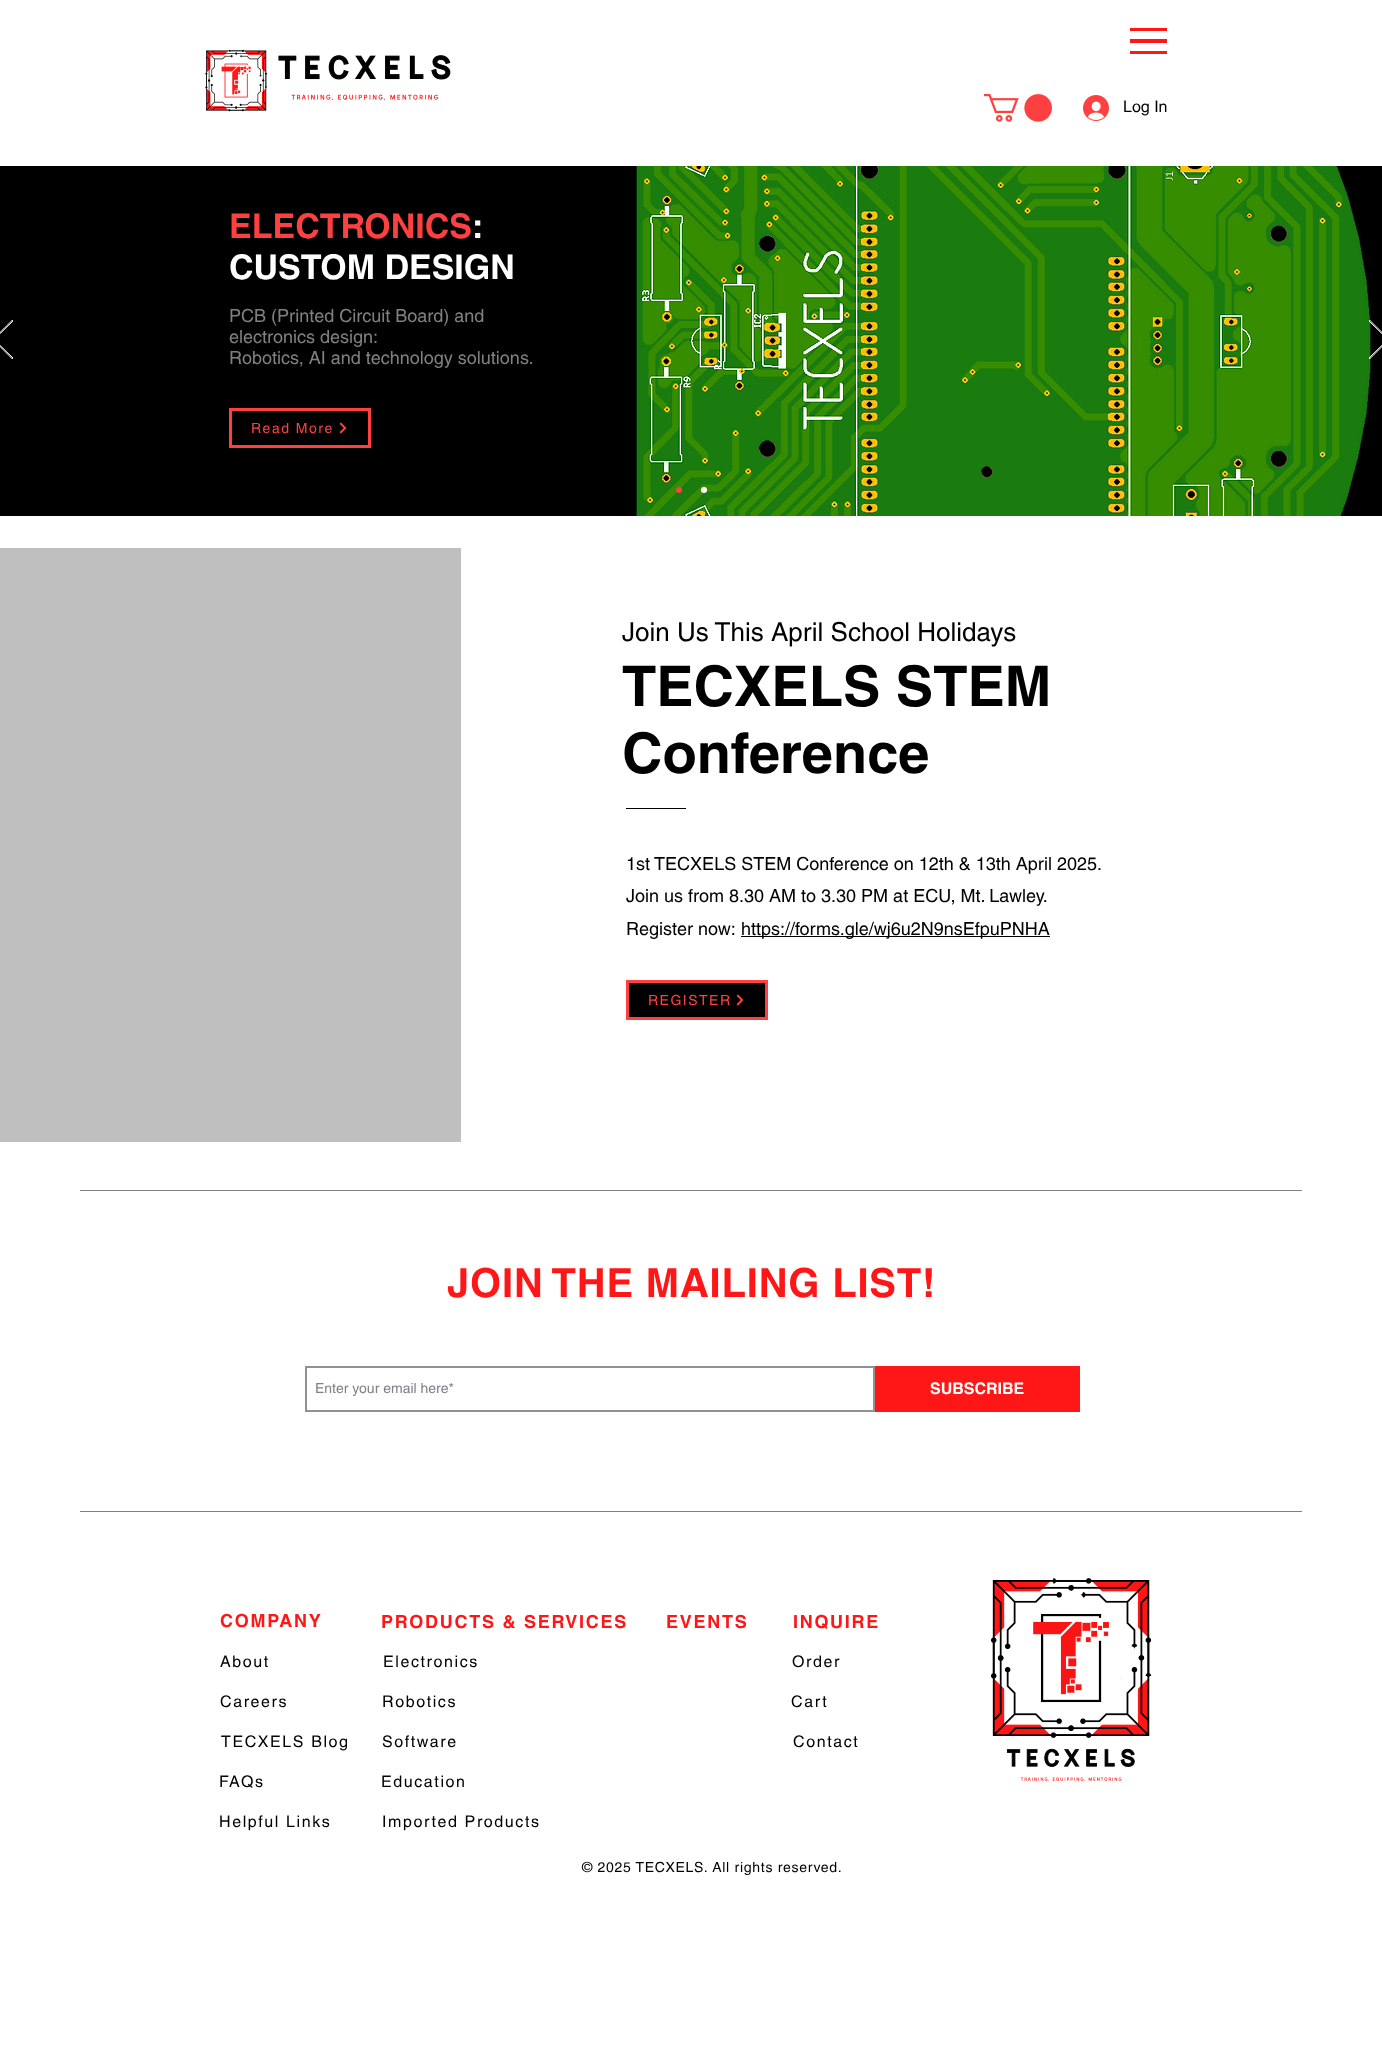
<?xml version="1.0" encoding="UTF-8"?>
<svg xmlns="http://www.w3.org/2000/svg" width="1382" height="2064">
    <defs>
        <clipPath id="clip1"><rect x="0" y="320" width="13" height="39"/></clipPath>
        <clipPath id="clip2"><rect x="1369" y="320" width="13" height="39"/></clipPath>
    </defs>
    <rect width="100%" height="100%" fill="#FFFFFF"/>
    <rect x="1130" y="51" width="37" height="3" fill="#FF1617"/>
    <rect x="1130" y="28" width="37" height="3" fill="#FF1617"/>
    <rect x="1130" y="39" width="37" height="4" fill="#FF1617"/>
    <image x="205" y="49" width="246" height="63" href="img_01.png"/>
    <image x="984" y="94" width="68" height="28" href="img_02.png"/>
    <image x="1083" y="95" width="26" height="26" href="img_03.png"/>
    <text x="1123" y="112" font-family="helvetica" font-size="16" fill="#000000">Log In</text>
    <rect x="0" y="166" width="1382" height="350" fill="#000000"/>
    <g clip-path="url(#clip1)">
        <path d="M 12.5 359 L -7 339.5 L 12.5 320 L 13 321 L -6 339.5 L 13 358 Z" fill="none" stroke="#FFFFFF"/>
    </g>
    <image x="636" y="166" width="735" height="350" href="img_04.png"/>
    <text x="229" y="238" font-family="helvetica" font-size="34" font-weight="700" fill="#FF4040">ELECTRONICS</text>
    <text x="472" y="238" font-family="helvetica" font-size="34" font-weight="700" fill="#FFFFFF">:</text>
    <text x="229" y="279" font-family="helvetica" font-size="34" font-weight="700" fill="#FFFFFF">CUSTOM DESIGN</text>
    <text font-family="helvetica" font-size="18" fill="#808080">
        <tspan x="229" y="322">PCB (Printed Circuit Board) and</tspan>
        <tspan x="229" y="343">electronics design:</tspan>
        <tspan x="229" y="364">Robotics, AI and technology solutions.</tspan>
    </text>
    <rect x="230.5" y="409.5" width="139" height="37" fill="none" stroke="#FF4040" stroke-width="3"/>
    <text x="251" y="433" font-family="helvetica" font-size="14" letter-spacing="1.5" fill="#FF4040">Read More</text>
    <image x="339" y="422" width="8" height="12" href="img_05.png"/>
    <g clip-path="url(#clip2)">
        <path d="M 1369.5 359 L 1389 339.5 L 1369.5 320 L 1369 321 L 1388 339.5 L 1369 358 Z" fill="none" stroke="#FFFFFF"/>
    </g>
    <circle cx="679" cy="490" r="3" fill="#FF4040"/>
    <circle cx="704" cy="490" r="3" fill="#FFFFFF"/>
    <rect x="0" y="548" width="461" height="594" fill="#BFBFBF"/>
    <text x="622" y="641" font-family="helvetica" font-size="26" fill="#000000">Join Us This April School Holidays</text>
    <text font-family="helvetica" font-size="56" font-weight="700" fill="#000000">
        <tspan x="622" y="706">TECXELS STEM</tspan>
        <tspan x="622" y="773">Conference</tspan>
    </text>
    <rect x="626" y="808" width="60" height="1" fill="#000000"/>
    <text font-family="helvetica" font-size="18" fill="#000000">
        <tspan x="626" y="870">1st TECXELS STEM Conference on 12th &amp; 13th April 2025.</tspan>
        <tspan x="626" y="902">Join us from 8.30 AM to 3.30 PM at ECU, Mt. Lawley.</tspan>
        <tspan x="626" y="935">Register now:</tspan>
    </text>
    <rect x="741" y="936" width="309" height="1" fill="#000000"/>
    <text x="741" y="935" font-family="helvetica" font-size="18" fill="#000000">https://forms.gle/wj6u2N9nsEfpuPNHA</text>
    <rect x="627.5" y="981.5" width="139" height="37" fill="#000000" stroke="#FF4040" stroke-width="3"/>
    <text x="648" y="1005" font-family="helvetica" font-size="14" letter-spacing="1.5" fill="#FF4040">REGISTER</text>
    <image x="736" y="994" width="8" height="12" href="img_05.png"/>
    <rect x="80" y="1190" width="1222" height="1" fill="#808080"/>
    <text x="447" y="1297" font-family="helvetica" font-size="40" font-weight="700" letter-spacing="0.8" fill="#FF1617">JOIN THE MAILING LIST!</text>
    <rect x="306" y="1367" width="568" height="44" fill="none" stroke="#919191" stroke-width="2"/>
    <text x="315" y="1393" font-family="helvetica" font-size="14" fill="#7F808A">Enter your email here*</text>
    <rect x="875" y="1366" width="205" height="46" fill="#FF1617"/>
    <text x="930" y="1394" font-family="helvetica" font-size="16" font-weight="700" fill="#FFFFFF">SUBSCRIBE</text>
    <rect x="80" y="1511" width="1222" height="1" fill="#808080"/>
    <text x="220" y="1627" font-family="helvetica" font-size="18" font-weight="700" letter-spacing="1.75" fill="#FF1617">COMPANY</text>
    <text x="381" y="1628" font-family="helvetica" font-size="18" font-weight="700" letter-spacing="1.75" fill="#FF1617">PRODUCTS &amp; SERVICES</text>
    <text x="666" y="1628" font-family="helvetica" font-size="18" font-weight="700" letter-spacing="1.75" fill="#FF1617">EVENTS</text>
    <text x="793" y="1628" font-family="helvetica" font-size="18" font-weight="700" letter-spacing="1.75" fill="#FF1617">INQUIRE</text>
    <text x="220" y="1667" font-family="helvetica" font-size="16" letter-spacing="1.6" fill="#000000">About</text>
    <text x="383" y="1667" font-family="helvetica" font-size="16" letter-spacing="1.6" fill="#000000">Electronics</text>
    <text x="792" y="1667" font-family="helvetica" font-size="16" letter-spacing="1.6" fill="#000000">Order</text>
    <text x="220" y="1707" font-family="helvetica" font-size="16" letter-spacing="1.6" fill="#000000">Careers</text>
    <text x="382" y="1707" font-family="helvetica" font-size="16" letter-spacing="1.6" fill="#000000">Robotics</text>
    <text x="791" y="1707" font-family="helvetica" font-size="16" letter-spacing="1.6" fill="#000000">Cart</text>
    <text x="221" y="1747" font-family="helvetica" font-size="16" letter-spacing="1.6" fill="#000000">TECXELS Blog</text>
    <text x="382" y="1747" font-family="helvetica" font-size="16" letter-spacing="1.6" fill="#000000">Software</text>
    <text x="793" y="1747" font-family="helvetica" font-size="16" letter-spacing="1.6" fill="#000000">Contact</text>
    <text x="219" y="1787" font-family="helvetica" font-size="16" letter-spacing="1.6" fill="#000000">FAQs</text>
    <text x="381" y="1787" font-family="helvetica" font-size="16" letter-spacing="1.6" fill="#000000">Education</text>
    <text x="219" y="1827" font-family="helvetica" font-size="16" letter-spacing="1.6" fill="#000000">Helpful Links</text>
    <text x="382" y="1827" font-family="helvetica" font-size="16" letter-spacing="1.6" fill="#000000">Imported Products</text>
    <text x="582" y="1872" font-family="helvetica" font-size="14" letter-spacing="0.7" fill="#000000">© 2025 TECXELS. All rights reserved.</text>
    <image x="991" y="1578" width="161" height="204" href="img_06.png"/>
</svg>
